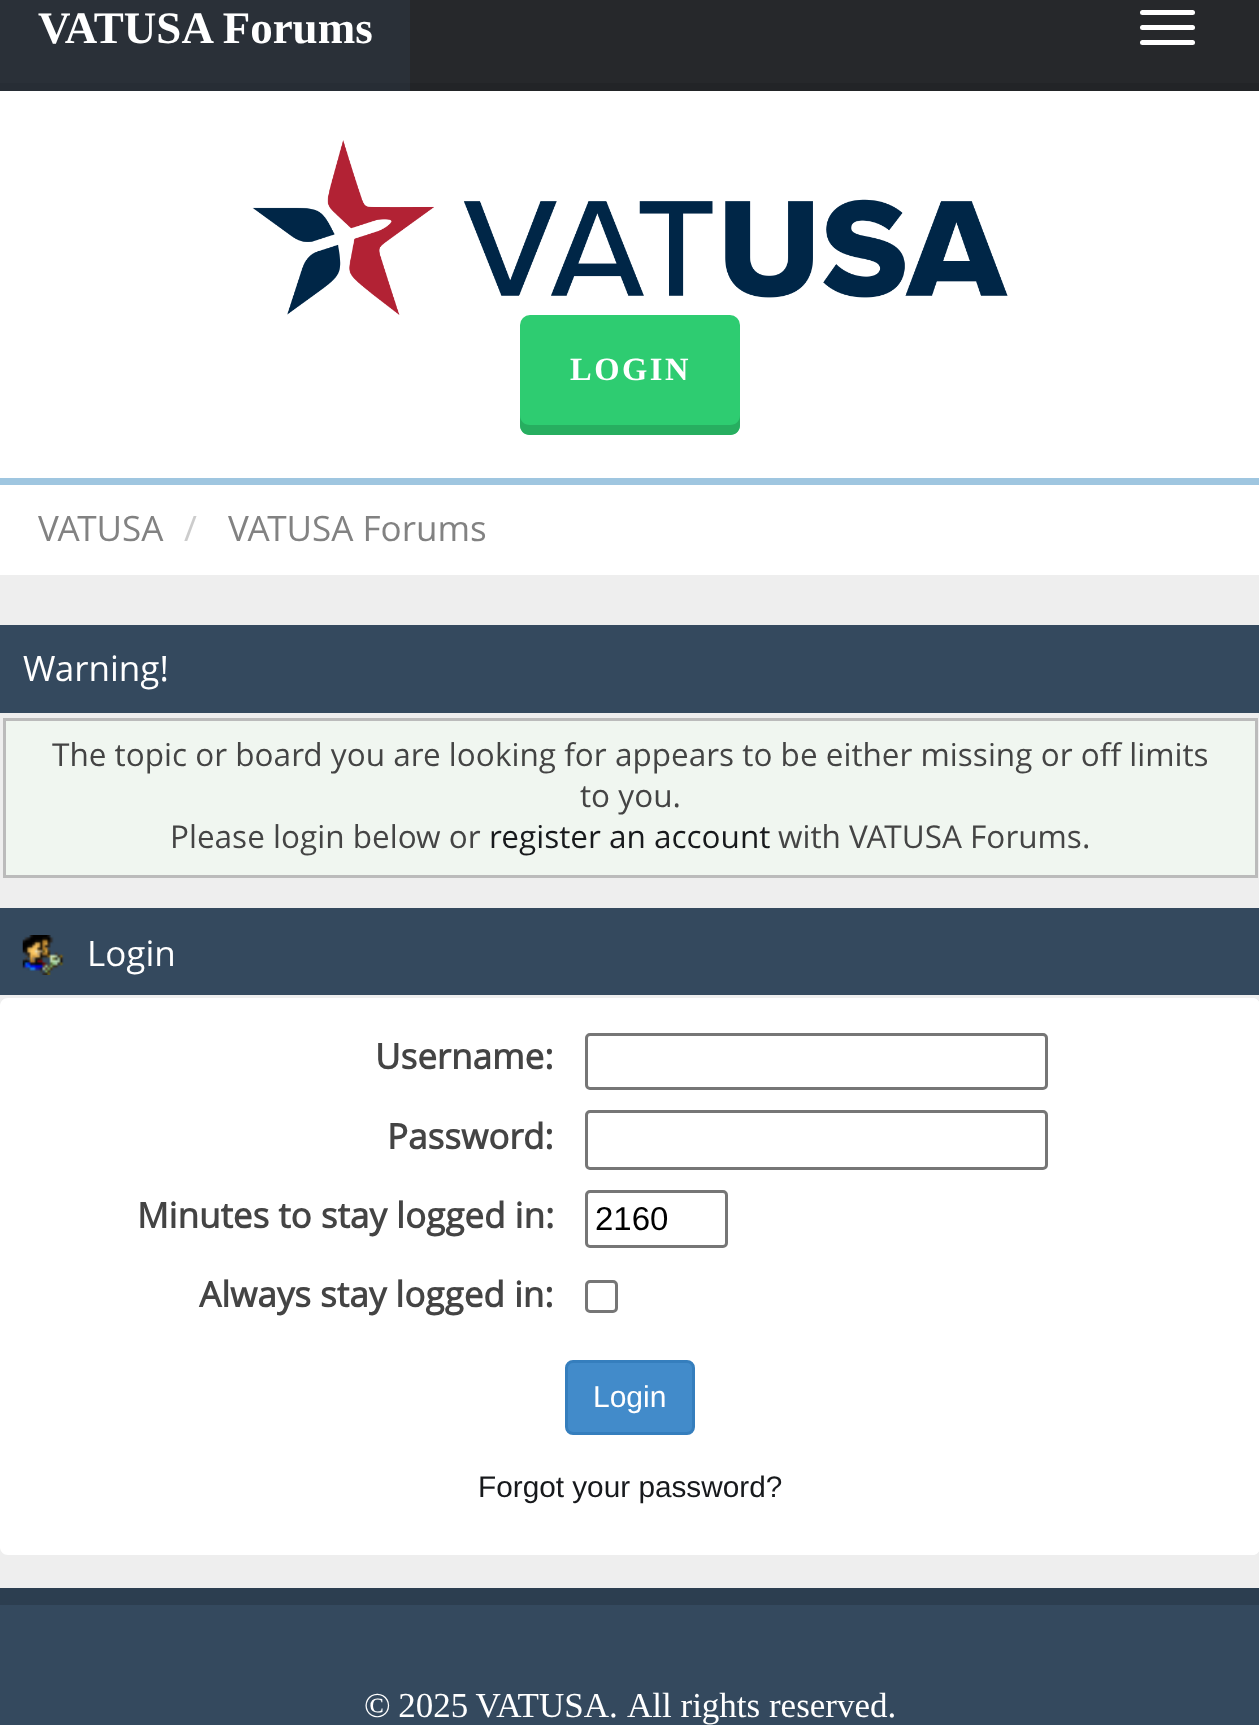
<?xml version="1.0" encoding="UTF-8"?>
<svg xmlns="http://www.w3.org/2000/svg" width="1259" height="1725">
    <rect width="100%" height="100%" fill="#EEEEEE"/>
    <rect x="410" y="0" width="849" height="83" fill="#26282B"/>
    <rect x="410" y="83" width="849" height="8" fill="#222427"/>
    <rect x="0" y="0" width="410" height="83" fill="#2A3038"/>
    <rect x="0" y="83" width="410" height="8" fill="#272D35"/>
    <text x="38" y="43" font-family="Liberation Serif" font-size="45" font-weight="700" fill="#FFFFFF">VATUSA Forums</text>
    <rect x="1140" y="10" width="55" height="5" rx="2.5" fill="#FFFFFF"/>
    <rect x="1140" y="25" width="55" height="5" rx="2.5" fill="#FFFFFF"/>
    <rect x="1140" y="40" width="55" height="5" rx="2.5" fill="#FFFFFF"/>
    <rect x="0" y="91" width="1259" height="387" fill="#FFFFFF"/>
    <rect x="0" y="478" width="1259" height="7" fill="#9FC6E0"/>
    <image x="252" y="140" width="756" height="175" href="img_01.png"/>
    <rect x="520" y="315" width="220" height="120" rx="10" fill="#2ECC71"/>
    <path d="M 520 415 V 425 C 520 431 524 435 530 435 H 730 C 736 435 740 431 740 425 V 415 C 740 421 736 425 730 425 H 530 C 524 425 520 421 520 415 Z" fill="#27AE60"/>
    <text x="570" y="380" font-family="Liberation Serif" font-size="32.5" font-weight="700" letter-spacing="2.5" fill="#FFFFFF">LOGIN</text>
    <rect x="0" y="485" width="1259" height="90" fill="#FFFFFF"/>
    <text x="38" y="541" font-family="Open Sans" font-size="35" fill="#828282">VATUSA</text>
    <text x="184" y="541" font-family="Open Sans" font-size="35" fill="#CCCCCC">/</text>
    <text x="228" y="541" font-family="Open Sans" font-size="35" fill="#828282">VATUSA Forums</text>
    <rect x="0" y="625" width="1259" height="88" fill="#34495E"/>
    <text x="23" y="681" font-family="Open Sans" font-size="35" fill="#FFFFFF">Warning!</text>
    <rect x="4.5" y="719.5" width="1252" height="157" fill="#F0F6F0" stroke="#BBBBBB" stroke-width="3"/>
    <text x="52" y="766" font-family="Open Sans" font-size="31.5" fill="#444444">The topic or board you are looking for appears to be either missing or off limits</text>
    <text x="580" y="807" font-family="Open Sans" font-size="31.5" fill="#444444">to you.</text>
    <text x="170" y="848" font-family="Open Sans" font-size="31.5" fill="#444444">Please login below or</text>
    <text x="489" y="848" font-family="Open Sans" font-size="31.5" fill="#17191C">register an account</text>
    <text x="778" y="848" font-family="Open Sans" font-size="31.5" fill="#444444">with VATUSA Forums.</text>
    <rect x="0" y="908" width="1259" height="87" fill="#34495E"/>
    <image x="22" y="935" width="42" height="40" href="img_02.png"/>
    <text x="87" y="966" font-family="Open Sans" font-size="35" fill="#FFFFFF">Login</text>
    <path d="M 8 998 H 1252 C 1256.5 998 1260 1001.5 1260 1006 V 1028 H 0 V 1006 C 0 1001.5 3.5 998 8 998 Z" fill="#FFFFFF"/>
    <path d="M 58 998 H 1252 C 1256.5 998 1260 1001.5 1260 1006 V 1028 H 50 V 1006 C 50 1001.5 53.5 998 58 998 Z" fill="#FFFFFF"/>
    <rect x="0" y="1028" width="1259" height="497" fill="#FFFFFF"/>
    <text x="375" y="1069" font-family="Open Sans" font-size="35" font-weight="700" fill="#444444">Username:</text>
    <rect x="586.5" y="1034.5" width="460" height="54" rx="3.5" fill="none" stroke="#767676" stroke-width="3"/>
    <text x="387" y="1149" font-family="Open Sans" font-size="35" font-weight="700" fill="#444444">Password:</text>
    <rect x="586.5" y="1111.5" width="460" height="57" rx="3.5" fill="none" stroke="#767676" stroke-width="3"/>
    <text x="137" y="1228" font-family="Open Sans" font-size="35" font-weight="700" fill="#444444">Minutes to stay logged in:</text>
    <rect x="586.5" y="1191.5" width="140" height="55" rx="3.5" fill="none" stroke="#767676" stroke-width="3"/>
    <text x="595" y="1230" font-family="Liberation Sans" font-size="33" fill="#000000">2160</text>
    <text x="199" y="1307" font-family="Open Sans" font-size="35" font-weight="700" fill="#444444">Always stay logged in:</text>
    <rect x="586.5" y="1281.5" width="30" height="30" rx="3.5" fill="none" stroke="#767676" stroke-width="3"/>
    <rect x="566.5" y="1361.5" width="127" height="72" rx="6.5" fill="#428BCA" stroke="#357EBD" stroke-width="3"/>
    <text x="593" y="1407" font-family="Liberation Sans" font-size="30" fill="#FFFFFF">Login</text>
    <text x="478" y="1497" font-family="Liberation Sans" font-size="29.75" fill="#17191C">Forgot your password?</text>
    <path d="M 0 1525 H 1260 V 1547 C 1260 1551.5 1256.5 1555 1252 1555 H 8 C 3.5 1555 0 1551.5 0 1547 Z" fill="#FFFFFF"/>
    <path d="M 50 1525 H 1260 V 1547 C 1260 1551.5 1256.5 1555 1252 1555 H 58 C 53.5 1555 50 1551.5 50 1547 Z" fill="#FFFFFF"/>
    <rect x="0" y="1588" width="1259" height="17" fill="#2C3E50"/>
    <rect x="0" y="1605" width="1259" height="120" fill="#34495E"/>
    <text x="364" y="1717" word-spacing="-1" font-family="Liberation Serif" font-size="35" fill="#FFFFFF">© 2025 VATUSA.</text>
    <text x="627" y="1717" font-family="Liberation Serif" font-size="35" fill="#FFFFFF">All rights reserved.</text>
</svg>
